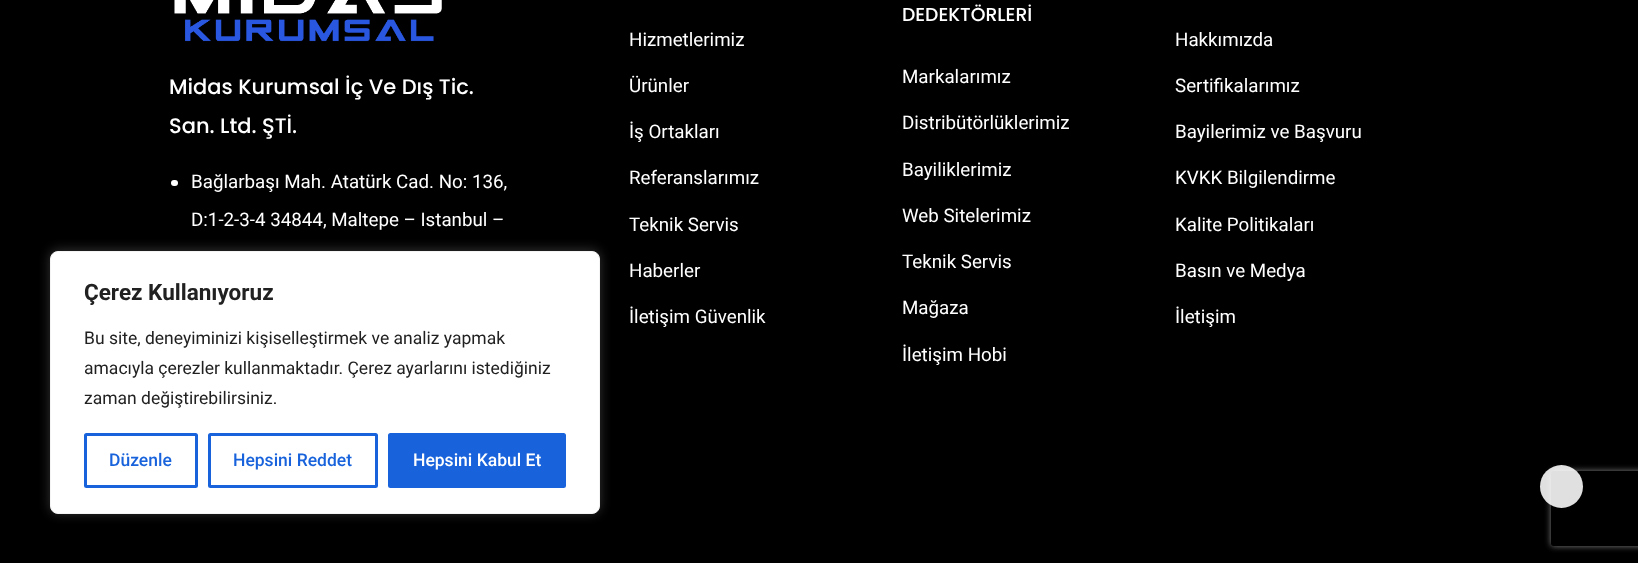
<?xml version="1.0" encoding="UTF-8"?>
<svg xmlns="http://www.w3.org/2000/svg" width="1638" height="563">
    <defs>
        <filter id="blur1" x="-50%" y="-200%" width="200%" height="500%"><feGaussianBlur stdDeviation="6"/></filter>
        <clipPath id="clip1"><path d="M 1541 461 H 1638 V 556 H 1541 Z M 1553.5 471 H 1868.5 C 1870 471 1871 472 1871 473.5 V 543.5 C 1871 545 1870 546 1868.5 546 H 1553.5 C 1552 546 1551 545 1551 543.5 V 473.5 C 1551 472 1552 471 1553.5 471 Z" clip-rule="evenodd"/></clipPath>
        <filter id="blur2" x="-50%" y="-200%" width="200%" height="500%"><feGaussianBlur stdDeviation="3"/></filter>
    </defs>
    <rect width="100%" height="100%" fill="#000000"/>
    <image x="174" y="0" width="268" height="42" href="img_01.png"/>
    <text font-family="Poppins" font-size="21" font-weight="500" fill="#FFFFFF">
        <tspan x="169" y="94">Midas Kurumsal İç Ve Dış Tic.</tspan>
        <tspan x="169" y="133">San. Ltd. ŞTİ.</tspan>
    </text>
    <rect x="171" y="180" width="7" height="6" rx="3" fill="#FFFFFF"/>
    <text x="191" y="188" font-family="Roboto" font-size="18.75" fill="#FFFFFF">Bağlarbaşı Mah. Atatürk Cad. No: 136,</text>
    <text x="191" y="226" font-family="Roboto" font-size="18.75" fill="#FFFFFF">D:1-2-3-4 34844, Maltepe – Istanbul –</text>
    <text x="629" y="46" font-family="Roboto" font-size="18.75" fill="#FFFFFF">Hizmetlerimiz</text>
    <text x="629" y="92" font-family="Roboto" font-size="18.75" fill="#FFFFFF">Ürünler</text>
    <text x="629" y="138" font-family="Roboto" font-size="18.75" fill="#FFFFFF">İş Ortakları</text>
    <text x="629" y="184" font-family="Roboto" font-size="18.75" fill="#FFFFFF">Referanslarımız</text>
    <text x="629" y="231" font-family="Roboto" font-size="18.75" fill="#FFFFFF">Teknik Servis</text>
    <text x="629" y="277" font-family="Roboto" font-size="18.75" fill="#FFFFFF">Haberler</text>
    <text x="629" y="323" font-family="Roboto" font-size="18.75" fill="#FFFFFF">İletişim Güvenlik</text>
    <text x="902" y="21" font-family="Poppins" font-size="18.75" font-weight="500" fill="#FFFFFF">DEDEKTÖRLERİ</text>
    <text x="902" y="83" font-family="Roboto" font-size="18.75" fill="#FFFFFF">Markalarımız</text>
    <text x="902" y="129" font-family="Roboto" font-size="18.75" fill="#FFFFFF">Distribütörlüklerimiz</text>
    <text x="902" y="176" font-family="Roboto" font-size="18.75" fill="#FFFFFF">Bayiliklerimiz</text>
    <text x="902" y="222" font-family="Roboto" font-size="18.75" fill="#FFFFFF">Web Sitelerimiz</text>
    <text x="902" y="268" font-family="Roboto" font-size="18.75" fill="#FFFFFF">Teknik Servis</text>
    <text x="902" y="314" font-family="Roboto" font-size="18.75" fill="#FFFFFF">Mağaza</text>
    <text x="902" y="361" font-family="Roboto" font-size="18.75" fill="#FFFFFF">İletişim Hobi</text>
    <text x="1175" y="46" font-family="Roboto" font-size="18.75" fill="#FFFFFF">Hakkımızda</text>
    <text x="1175" y="92" font-family="Roboto" font-size="18.75" fill="#FFFFFF">Sertifikalarımız</text>
    <text x="1175" y="138" font-family="Roboto" font-size="18.75" fill="#FFFFFF">Bayilerimiz ve Başvuru</text>
    <text x="1175" y="184" font-family="Roboto" font-size="18.75" fill="#FFFFFF">KVKK Bilgilendirme</text>
    <text x="1175" y="231" font-family="Roboto" font-size="18.75" fill="#FFFFFF">Kalite Politikaları</text>
    <text x="1175" y="277" font-family="Roboto" font-size="18.75" fill="#FFFFFF">Basın ve Medya</text>
    <text x="1175" y="323" font-family="Roboto" font-size="18.75" fill="#FFFFFF">İletişim</text>
    <rect x="50" y="250" width="550" height="263" rx="8" fill="#ACABAB" fill-opacity="0.3" filter="url(#blur1)"/>
    <rect x="50.5" y="251.5" width="549" height="262" rx="7.5" fill="#FFFFFF" stroke="#F4F4F4"/>
    <text x="84" y="300" font-family="Roboto" font-size="22.5" font-weight="700" fill="#212121">Çerez Kullanıyoruz</text>
    <text font-family="Roboto" font-size="17.5" fill="#212121">
        <tspan x="84" y="344">Bu site, deneyiminizi kişiselleştirmek ve analiz yapmak</tspan>
        <tspan x="84" y="374">amacıyla çerezler kullanmaktadır. Çerez ayarlarını istediğiniz</tspan>
        <tspan x="84" y="404">zaman değiştirebilirsiniz.</tspan>
    </text>
    <rect x="85.5" y="434.5" width="111" height="52" rx="1" fill="none" stroke="#1863DC" stroke-width="3"/>
    <text x="109" y="466" font-family="Roboto" font-size="17.5" font-weight="500" fill="#1863DC">Düzenle</text>
    <rect x="209.5" y="434.5" width="167" height="52" rx="1" fill="none" stroke="#1863DC" stroke-width="3"/>
    <text x="233" y="466" font-family="Roboto" font-size="17.5" font-weight="500" fill="#1863DC">Hepsini Reddet</text>
    <rect x="389.5" y="434.5" width="175" height="52" rx="1" fill="#1863DC" stroke="#1863DC" stroke-width="3"/>
    <text x="413" y="466" font-family="Roboto" font-size="17.5" font-weight="500" fill="#FFFFFF">Hepsini Kabul Et</text>
    <g clip-path="url(#clip1)">
        <rect x="1551" y="471" width="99" height="75" rx="2.5" fill="#808080" filter="url(#blur2)"/>
    </g>
    <circle cx="1561.5" cy="486.5" r="21.5" fill="#FFFFFF" fill-opacity="0.88"/>
</svg>
